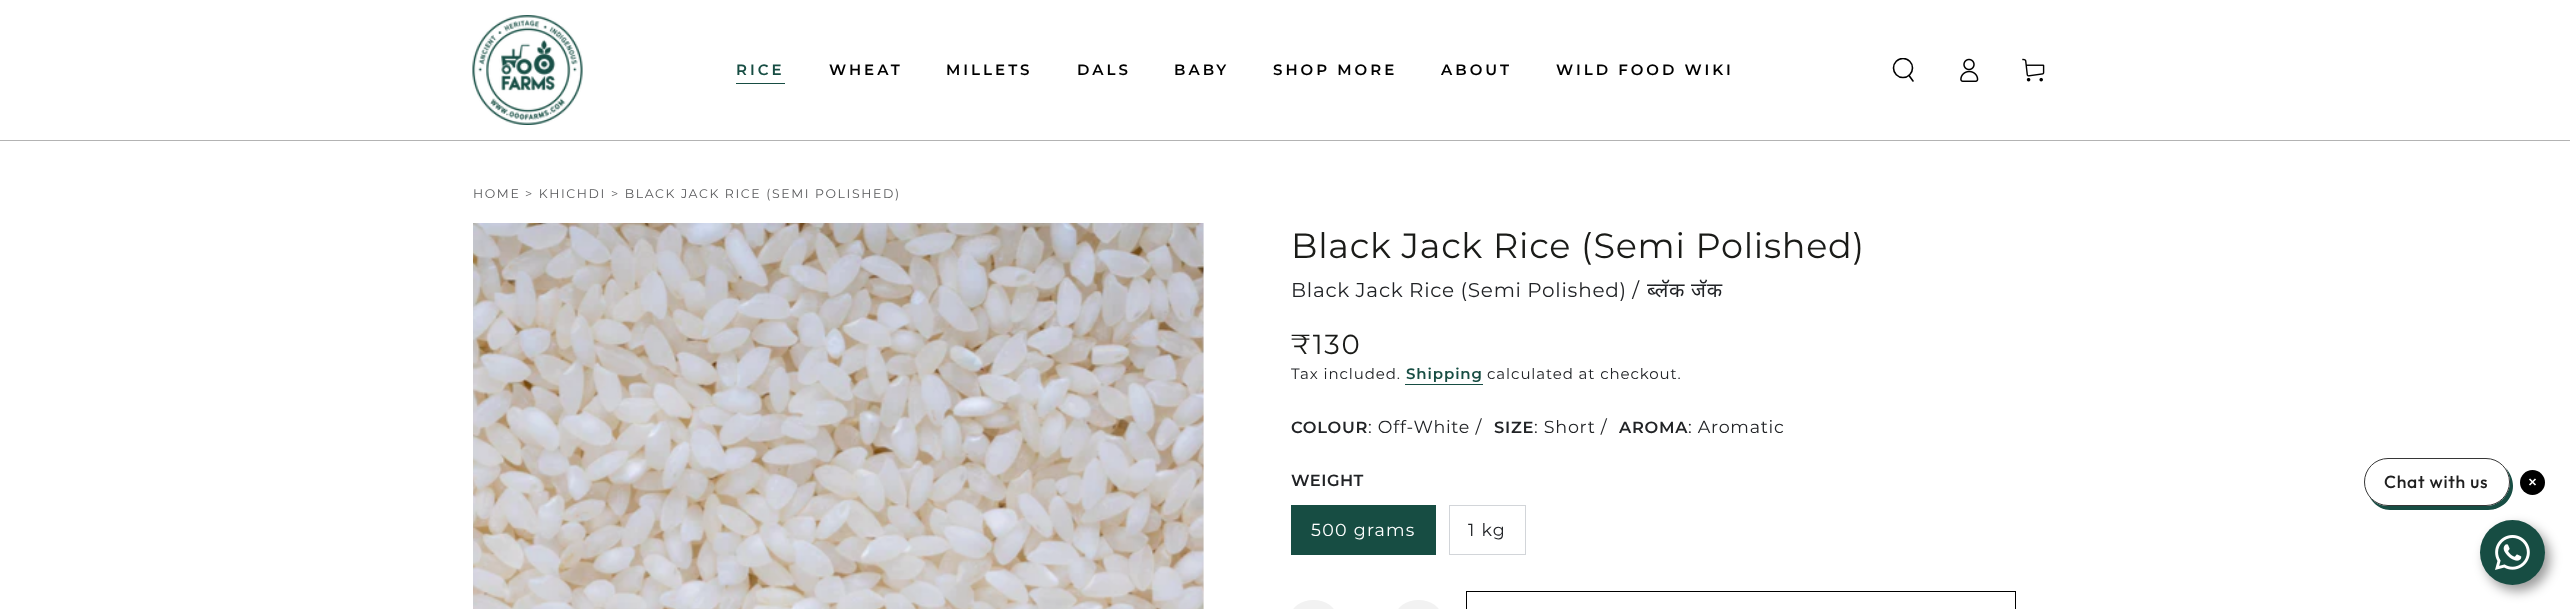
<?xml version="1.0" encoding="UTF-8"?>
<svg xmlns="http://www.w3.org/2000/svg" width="2570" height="609">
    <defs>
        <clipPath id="clip1"><rect x="1891" y="58" width="25" height="25"/></clipPath>
        <filter id="blur1" x="-50%" y="-200%" width="200%" height="500%"><feGaussianBlur stdDeviation="6"/></filter>
    </defs>
    <rect width="100%" height="100%" fill="#FFFFFF"/>
    <rect x="0" y="140" width="2570" height="1" fill="#B3B3B3"/>
    <image x="472" y="15" width="111" height="110" href="img_01.png"/>
    <rect x="736" y="83" width="49" height="1" fill="#174D43"/>
    <text x="736" y="75" font-family="Montserrat" font-size="15" font-weight="600" letter-spacing="3" fill="#174D43">RICE</text>
    <text x="829" y="75" font-family="Montserrat" font-size="15" font-weight="600" letter-spacing="3" fill="#000000">WHEAT</text>
    <text x="946" y="75" font-family="Montserrat" font-size="15" font-weight="600" letter-spacing="3" fill="#000000">MILLETS</text>
    <text x="1077" y="75" font-family="Montserrat" font-size="15" font-weight="600" letter-spacing="3" fill="#000000">DALS</text>
    <text x="1174" y="75" font-family="Montserrat" font-size="15" font-weight="600" letter-spacing="3" fill="#000000">BABY</text>
    <text x="1273" y="75" font-family="Montserrat" font-size="15" font-weight="600" letter-spacing="3" fill="#000000">SHOP MORE</text>
    <text x="1441" y="75" font-family="Montserrat" font-size="15" font-weight="600" letter-spacing="3" fill="#000000">ABOUT</text>
    <text x="1556" y="75" font-family="Montserrat" font-size="15" font-weight="600" letter-spacing="3" fill="#000000">WILD FOOD WIKI</text>
    <g clip-path="url(#clip1)">
        <circle cx="1903" cy="68" r="9.5" fill="none" stroke="#000000" stroke-width="1.6"/>
    </g>
    <path d="M 1909 75.5 L 1913 81" fill="none" stroke="#000000" stroke-width="1.6" stroke-linecap="round"/>
    <image x="1960" y="58" width="19" height="24" href="img_02.png"/>
    <image x="2022" y="58" width="23" height="24" href="img_03.png"/>
    <text x="473" y="198" font-family="Montserrat" font-size="12.5" letter-spacing="1.6" fill="#595A5C">HOME</text>
    <text x="525" y="198" font-family="Montserrat" font-size="12.5" letter-spacing="1.6" fill="#595A5C">&gt; KHICHDI</text>
    <text x="611" y="198" font-family="Montserrat" font-size="12.5" letter-spacing="1.6" fill="#595A5C">&gt; BLACK JACK RICE (SEMI POLISHED)</text>
    <image x="473" y="223" width="731" height="386" href="img_04.png"/>
    <text x="1291" y="258" font-family="Montserrat" font-size="35" letter-spacing="0.75" fill="#1A1B18">Black Jack Rice (Semi Polished)</text>
    <text x="1291" y="297" word-spacing="-0.5" font-family="Montserrat" font-size="20" letter-spacing="0.75" fill="#212326">Black Jack Rice (Semi Polished) /</text>
    <text x="1647" y="297" font-family="Noto Sans" font-size="20" letter-spacing="0.75" fill="#212326">ब्लॅक जॅक</text>
    <text x="1291" y="354" font-family="Montserrat" font-size="27.5" letter-spacing="1.6" fill="#1A1B18">₹130</text>
    <text x="1291" y="379" font-family="Montserrat" font-size="15" letter-spacing="0.9" fill="#212326">Tax included.</text>
    <text x="1406" y="379" font-family="Montserrat" font-size="15" font-weight="600" letter-spacing="0.9" fill="#174D43">Shipping</text>
    <rect x="1405" y="384" width="78" height="1" fill="#174D43"/>
    <text x="1487" y="379" font-family="Montserrat" font-size="15" letter-spacing="0.9" fill="#212326">calculated at checkout.</text>
    <text x="1291" y="433" font-family="Montserrat" font-size="16.25" font-weight="600" letter-spacing="0.75" fill="#212326">COLOUR</text>
    <text x="1368" y="433" font-family="Montserrat" font-size="17.5" letter-spacing="0.75" fill="#212326">: Off-White /</text>
    <text x="1494" y="433" font-family="Montserrat" font-size="16.25" font-weight="600" letter-spacing="0.75" fill="#212326">SIZE</text>
    <text x="1534" y="433" font-family="Montserrat" font-size="17.5" letter-spacing="0.75" fill="#212326">: Short /</text>
    <text x="1619" y="433" font-family="Montserrat" font-size="16.25" font-weight="600" letter-spacing="0.75" fill="#212326">AROMA</text>
    <text x="1688" y="433" font-family="Montserrat" font-size="17.5" letter-spacing="0.75" fill="#212326">: Aromatic</text>
    <text x="1291" y="486" font-family="Montserrat" font-size="16.25" font-weight="600" letter-spacing="0.5" fill="#212326">WEIGHT</text>
    <rect x="1291" y="505" width="145" height="50" fill="#174D43"/>
    <text x="1311" y="536" font-family="Montserrat" font-size="17.5" letter-spacing="1.25" fill="#FFFFFF">500 grams</text>
    <rect x="1449.5" y="505.5" width="76" height="49" fill="none" stroke="#D2D5D9"/>
    <text x="1468" y="536" font-family="Montserrat" font-size="17.5" letter-spacing="1.25" fill="#212326">1 kg</text>
    <rect x="1291" y="600" width="45" height="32" rx="22.5" fill="#F2F2F2"/>
    <rect x="1396" y="600" width="45" height="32" rx="22.5" fill="#F2F2F2"/>
    <rect x="1466.5" y="591.5" width="549" height="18" fill="none" stroke="#000000"/>
    <rect x="2485" y="526" width="65" height="65" rx="32.5" fill="#000000" fill-opacity="0.4" filter="url(#blur1)"/>
    <path d="M 2369 496 C 2373 504 2381 510 2390 510 H 2488 C 2502 510 2513 499 2513 486 C 2513 479 2510 473 2506 468 C 2508 472 2510 477 2510 482 C 2510 495 2499 506 2486 506 H 2388 C 2380 506 2373 502 2369 496 Z" fill="#174D43"/>
    <rect x="2364.5" y="458.5" width="145" height="47" rx="23.5" fill="#FFFFFF" stroke="#363636"/>
    <text x="2384" y="488" font-family="Outfit" font-size="17.5" font-weight="500" letter-spacing="0.75" fill="#202020">Chat with us</text>
    <circle cx="2532.5" cy="482.5" r="12.5" fill="#000000"/>
    <path d="M 2529.5 479 L 2535.5 485 M 2529.5 485 L 2535.5 479" fill="none" stroke="#FFFFFF" stroke-width="1.7"/>
    <circle cx="2512.5" cy="552.5" r="32.5" fill="#174D43"/>
    <image x="2495" y="535" width="35" height="35" href="img_05.png"/>
</svg>
